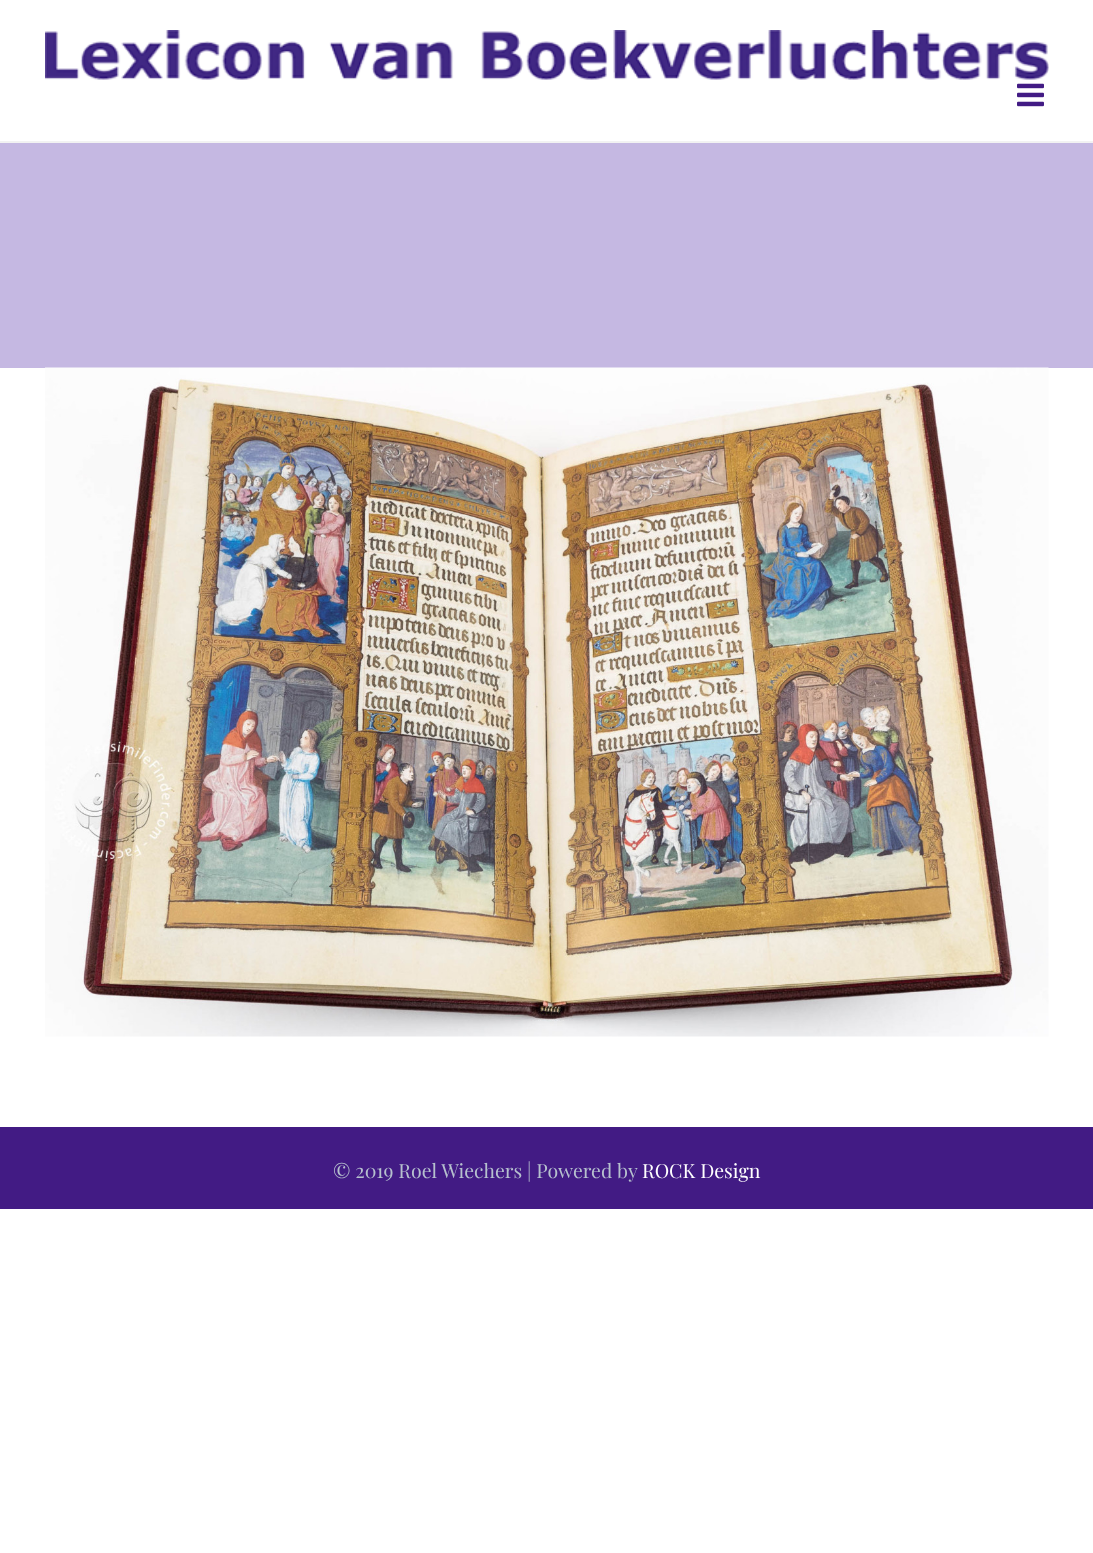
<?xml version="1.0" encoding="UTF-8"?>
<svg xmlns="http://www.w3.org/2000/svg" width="1093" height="1553">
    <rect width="100%" height="100%" fill="#FFFFFF"/>
    <rect x="0" y="141" width="1093" height="2" fill="#F2F2F2"/>
    <image x="45" y="30" width="1004" height="50" href="img_01.png"/>
    <image x="1017" y="83" width="27" height="24" href="img_02.png"/>
    <rect x="0" y="143" width="1093" height="225" fill="#C5B8E2"/>
    <image x="45" y="367" width="1004" height="670" href="img_03.png"/>
    <rect x="0" y="1127" width="1093" height="82" fill="#421B84"/>
    <text x="333" y="1178" font-family="Playfair Display" font-size="19.5" fill="#B6C0CE">© 2019 Roel Wiechers | Powered by</text>
    <text x="642" y="1178" font-family="Playfair Display" font-size="19.5" fill="#FFFFFF">ROCK Design</text>
</svg>
